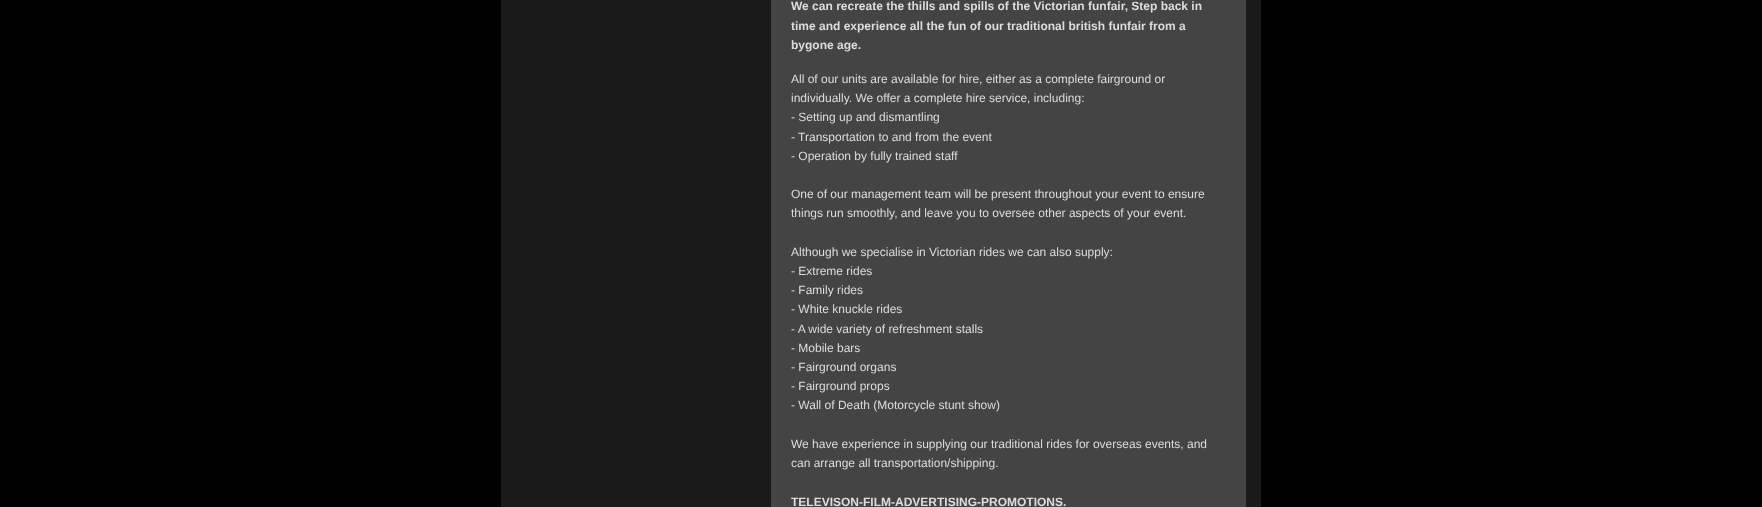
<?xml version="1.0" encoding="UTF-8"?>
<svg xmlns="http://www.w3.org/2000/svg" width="1762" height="507">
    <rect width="100%" height="100%" fill="#000000"/>
    <rect x="501" y="0" width="760" height="507" fill="#1A1A1A"/>
    <rect x="771" y="0" width="475" height="507" fill="#444444"/>
    <text font-family="Liberation Sans" font-size="12" font-weight="700" fill="#DDDDDD">
        <tspan x="791" y="10">We can recreate the thills and spills of the Victorian funfair, Step back in</tspan>
        <tspan x="791" y="30">time and experience all the fun of our traditional british funfair from a</tspan>
        <tspan x="791" y="49">bygone age.</tspan>
    </text>
    <text font-family="Liberation Sans" font-size="12" fill="#DDDDDD">
        <tspan x="791" y="83">All of our units are available for hire, either as a complete fairground or</tspan>
        <tspan x="791" y="102">individually. We offer a complete hire service, including:</tspan>
        <tspan x="791" y="121">- Setting up and dismantling</tspan>
        <tspan x="791" y="141">- Transportation to and from the event</tspan>
        <tspan x="791" y="160">- Operation by fully trained staff</tspan>
    </text>
    <text font-family="Liberation Sans" font-size="12" fill="#DDDDDD">
        <tspan x="791" y="198">One of our management team will be present throughout your event to ensure</tspan>
        <tspan x="791" y="217">things run smoothly, and leave you to oversee other aspects of your event.</tspan>
    </text>
    <text font-family="Liberation Sans" font-size="12" fill="#DDDDDD">
        <tspan x="791" y="256">Although we specialise in Victorian rides we can also supply:</tspan>
        <tspan x="791" y="275">- Extreme rides</tspan>
        <tspan x="791" y="294">- Family rides</tspan>
        <tspan x="791" y="313">- White knuckle rides</tspan>
        <tspan x="791" y="333">- A wide variety of refreshment stalls</tspan>
        <tspan x="791" y="352">- Mobile bars</tspan>
        <tspan x="791" y="371">- Fairground organs</tspan>
        <tspan x="791" y="390">- Fairground props</tspan>
        <tspan x="791" y="409">- Wall of Death (Motorcycle stunt show)</tspan>
    </text>
    <text font-family="Liberation Sans" font-size="12" fill="#DDDDDD">
        <tspan x="791" y="448">We have experience in supplying our traditional rides for overseas events, and</tspan>
        <tspan x="791" y="467">can arrange all transportation/shipping.</tspan>
    </text>
    <text x="791" y="506" font-family="Liberation Sans" font-size="12" font-weight="700" fill="#DDDDDD">TELEVISON-FILM-ADVERTISING-PROMOTIONS.</text>
</svg>
